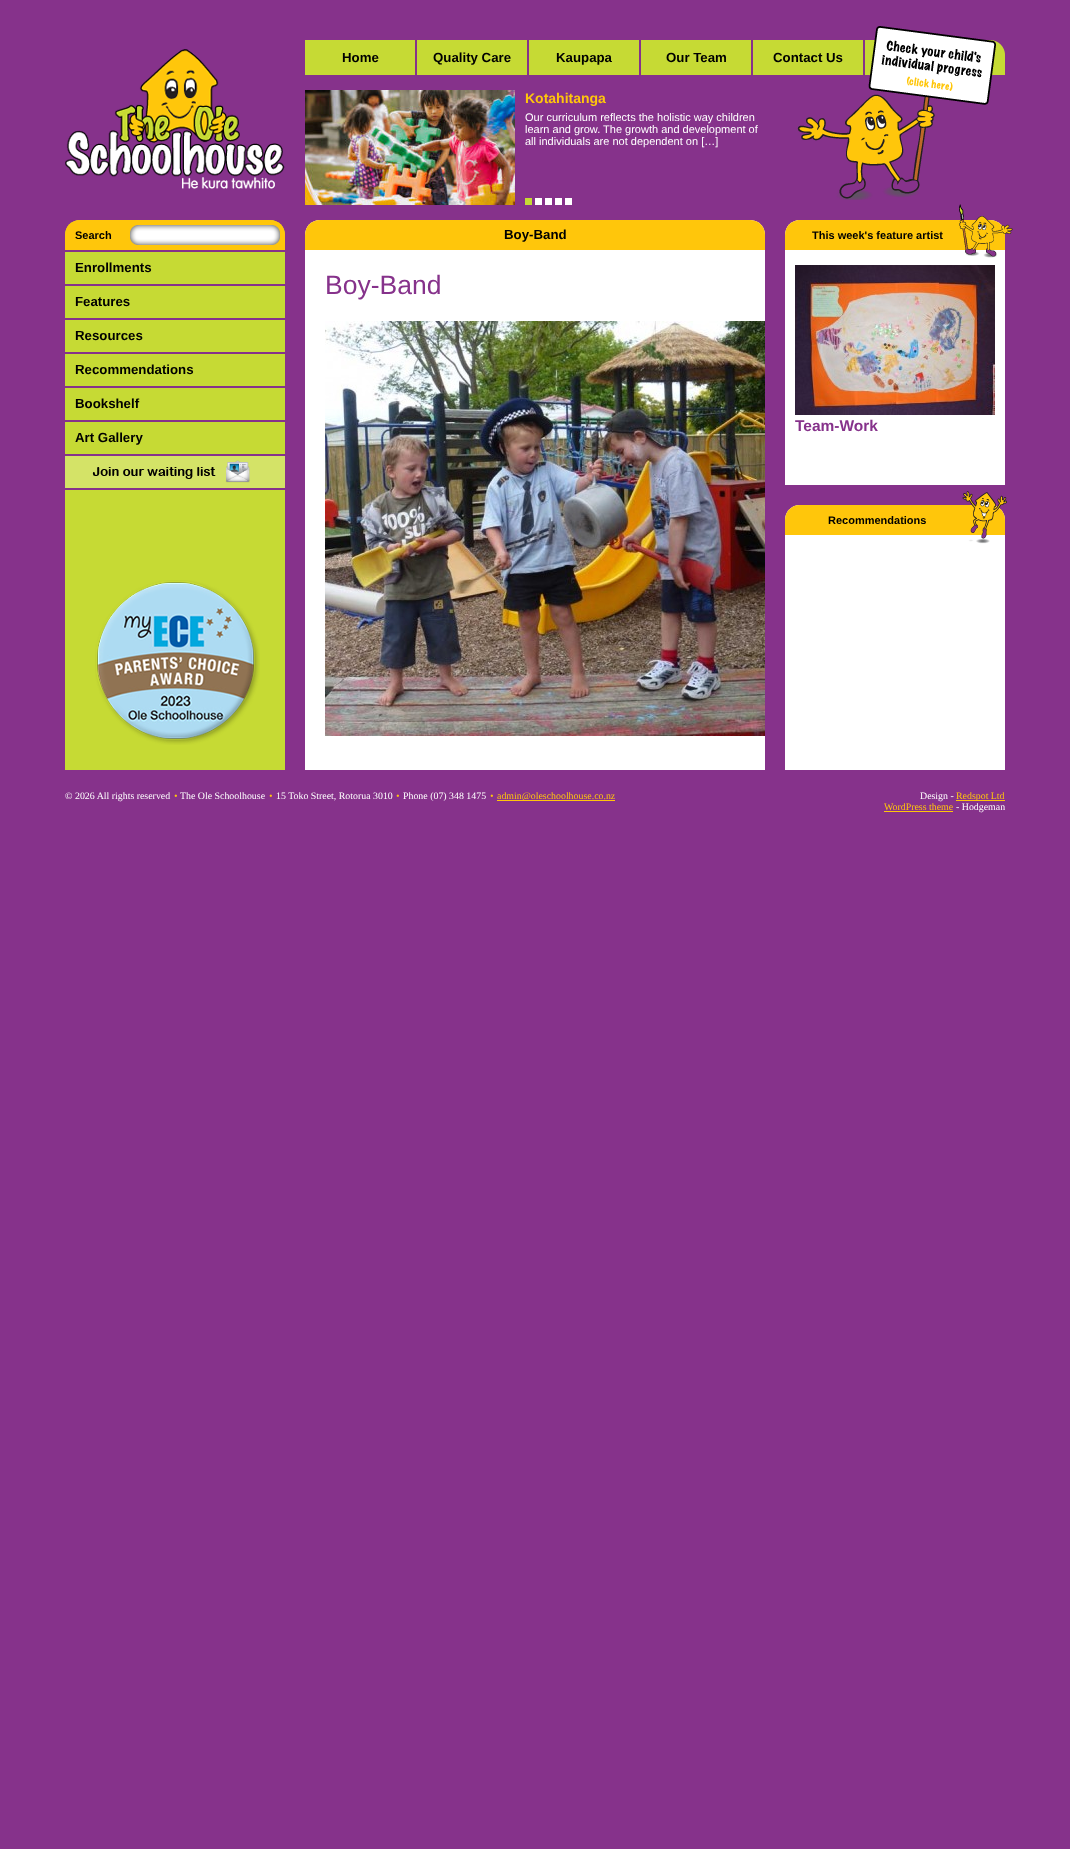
<?xml version="1.0" encoding="UTF-8"?>
<svg xmlns="http://www.w3.org/2000/svg" width="1070" height="1849">
    <rect width="100%" height="100%" fill="#86328B"/>
    <image x="65" y="49" width="220" height="140" href="img_01.png"/>
    <rect x="417" y="40" width="334" height="35" fill="#C6DA34"/>
    <rect x="305" y="40" width="110" height="35" fill="#C6DA34"/>
    <text x="342" y="62" font-family="Liberation Sans" font-size="13.25" font-weight="700" fill="#000000">Home</text>
    <rect x="527" y="40" width="2" height="35" fill="#86328B"/>
    <text x="433" y="62" font-family="Liberation Sans" font-size="13.25" font-weight="700" fill="#000000">Quality Care</text>
    <rect x="639" y="40" width="2" height="35" fill="#86328B"/>
    <text x="556" y="62" font-family="Liberation Sans" font-size="13.25" font-weight="700" fill="#000000">Kaupapa</text>
    <text x="666" y="62" font-family="Liberation Sans" font-size="13.25" font-weight="700" fill="#000000">Our Team</text>
    <image x="797" y="26" width="208" height="174" href="img_02.png"/>
    <rect x="753" y="40" width="110" height="35" fill="#C6DA34"/>
    <text x="773" y="62" font-family="Liberation Sans" font-size="13.25" font-weight="700" fill="#000000">Contact Us</text>
    <image x="305" y="90" width="210" height="115" href="img_03.png"/>
    <text x="525" y="103" font-family="Liberation Sans" font-size="14" font-weight="700" fill="#FFC60B">Kotahitanga</text>
    <text font-family="Liberation Sans" font-size="11" fill="#FFFFFF">
        <tspan x="525" y="121">Our curriculum reflects the holistic way children</tspan>
        <tspan x="525" y="133">learn and grow. The growth and development of</tspan>
        <tspan x="525" y="145">all individuals are not dependent on […]</tspan>
    </text>
    <rect x="525" y="198" width="7" height="7" fill="#C6DA34"/>
    <rect x="535" y="198" width="7" height="7" fill="#FFFFFF"/>
    <rect x="545" y="198" width="7" height="7" fill="#FFFFFF"/>
    <rect x="555" y="198" width="7" height="7" fill="#FFFFFF"/>
    <rect x="565" y="198" width="7" height="7" fill="#FFFFFF"/>
    <path d="M 80 220 H 270 C 278.5 220 285 226.5 285 235 V 770 H 65 V 235 C 65 226.5 71.5 220 80 220 Z" fill="#C6DA34"/>
    <rect x="65" y="250" width="220" height="2" fill="#86328B"/>
    <path d="M 80 220 H 270 C 278.5 220 285 226.5 285 235 V 250 H 65 V 235 C 65 226.5 71.5 220 80 220 Z" fill="#FFC60B"/>
    <text x="75" y="239" font-family="Liberation Sans" font-size="11" font-weight="700" fill="#000000">Search</text>
    <image x="130" y="225" width="150" height="20" href="img_04.png"/>
    <rect x="65" y="284" width="220" height="2" fill="#86328B"/>
    <text x="75" y="272" font-family="Liberation Sans" font-size="13.25" font-weight="700" fill="#000000">Enrollments</text>
    <rect x="65" y="318" width="220" height="2" fill="#86328B"/>
    <text x="75" y="306" font-family="Liberation Sans" font-size="13.25" font-weight="700" fill="#000000">Features</text>
    <rect x="65" y="352" width="220" height="2" fill="#86328B"/>
    <text x="75" y="340" font-family="Liberation Sans" font-size="13.25" font-weight="700" fill="#000000">Resources</text>
    <rect x="65" y="386" width="220" height="2" fill="#86328B"/>
    <text x="75" y="374" font-family="Liberation Sans" font-size="13.25" font-weight="700" fill="#000000">Recommendations</text>
    <rect x="65" y="420" width="220" height="2" fill="#86328B"/>
    <text x="75" y="408" font-family="Liberation Sans" font-size="13.25" font-weight="700" fill="#000000">Bookshelf</text>
    <rect x="65" y="454" width="220" height="2" fill="#86328B"/>
    <text x="75" y="442" font-family="Liberation Sans" font-size="13.25" font-weight="700" fill="#000000">Art Gallery</text>
    <rect x="65" y="456" width="220" height="32" fill="#D4E367"/>
    <image x="92" y="460" width="158" height="23" href="img_05.png"/>
    <rect x="65" y="488" width="220" height="2" fill="#86328B"/>
    <image x="95" y="580" width="165" height="165" href="img_06.png"/>
    <path d="M 320 220 H 750 C 758.5 220 765 226.5 765 235 V 770 H 305 V 235 C 305 226.5 311.5 220 320 220 Z" fill="#FFFFFF"/>
    <path d="M 320 220 H 750 C 758.5 220 765 226.5 765 235 V 250 H 305 V 235 C 305 226.5 311.5 220 320 220 Z" fill="#FFC60B"/>
    <text x="504" y="239" font-family="Liberation Sans" font-size="13.25" font-weight="700" fill="#000000">Boy-Band</text>
    <text x="325" y="294" font-family="Liberation Sans" font-size="26.5" fill="#86328B">Boy-Band</text>
    <image x="325" y="321" width="440" height="415" href="img_07.png"/>
    <path d="M 800 220 H 990 C 998.5 220 1005 226.5 1005 235 V 485 H 785 V 235 C 785 226.5 791.5 220 800 220 Z" fill="#FFFFFF"/>
    <path d="M 800 220 H 990 C 998.5 220 1005 226.5 1005 235 V 250 H 785 V 235 C 785 226.5 791.5 220 800 220 Z" fill="#FFC60B"/>
    <text x="812" y="239" font-family="Liberation Sans" font-size="11" font-weight="700" fill="#000000">This week's feature artist</text>
    <image x="959" y="204" width="54" height="54" href="img_08.png"/>
    <image x="795" y="265" width="200" height="150" href="img_09.png"/>
    <text x="795" y="431" font-family="Liberation Sans" font-size="15.5" font-weight="700" fill="#86328B">Team-Work</text>
    <path d="M 800 505 H 990 C 998.5 505 1005 511.5 1005 520 V 770 H 785 V 520 C 785 511.5 791.5 505 800 505 Z" fill="#FFFFFF"/>
    <path d="M 800 505 H 990 C 998.5 505 1005 511.5 1005 520 V 535 H 785 V 520 C 785 511.5 791.5 505 800 505 Z" fill="#FFC60B"/>
    <text x="828" y="524" font-family="Liberation Sans" font-size="11" font-weight="700" fill="#000000">Recommendations</text>
    <image x="962" y="491" width="45" height="53" href="img_10.png"/>
    <text x="65" y="799" font-family="Liberation Serif" font-size="9.9" fill="#FFFFFF">© 2026 All rights reserved</text>
    <text x="174" y="799" font-family="Liberation Serif" font-size="9.9" font-style="italic" fill="#FFC60B">•</text>
    <text x="180" y="799" font-family="Liberation Serif" font-size="9.9" fill="#FFFFFF">The Ole Schoolhouse</text>
    <text x="269" y="799" font-family="Liberation Serif" font-size="9.9" font-style="italic" fill="#FFC60B">•</text>
    <text x="276" y="799" font-family="Liberation Serif" font-size="9.9" fill="#FFFFFF">15 Toko Street, Rotorua 3010</text>
    <text x="396" y="799" font-family="Liberation Serif" font-size="9.9" font-style="italic" fill="#FFC60B">•</text>
    <text x="403" y="799" font-family="Liberation Serif" font-size="9.9" fill="#FFFFFF">Phone (07) 348 1475</text>
    <text x="490" y="799" font-family="Liberation Serif" font-size="9.9" font-style="italic" fill="#FFC60B">•</text>
    <rect x="497" y="800" width="118" height="1" fill="#FFC60B"/>
    <text x="497" y="799" font-family="Liberation Serif" font-size="9.9" fill="#FFC60B">admin@oleschoolhouse.co.nz</text>
    <text x="920" y="799" font-family="Liberation Serif" font-size="9.9" fill="#FFFFFF">Design -</text>
    <rect x="956" y="800" width="49" height="1" fill="#FFC60B"/>
    <text x="956" y="799" font-family="Liberation Serif" font-size="9.9" fill="#FFC60B">Redspot Ltd</text>
    <text x="884" y="810" font-family="Liberation Serif" font-size="9.9" fill="#FFC60B">WordPress theme</text>
    <rect x="884" y="811" width="69" height="1" fill="#FFC60B"/>
    <text x="956" y="810" font-family="Liberation Serif" font-size="9.9" fill="#FFFFFF">- Hodgeman</text>
</svg>
